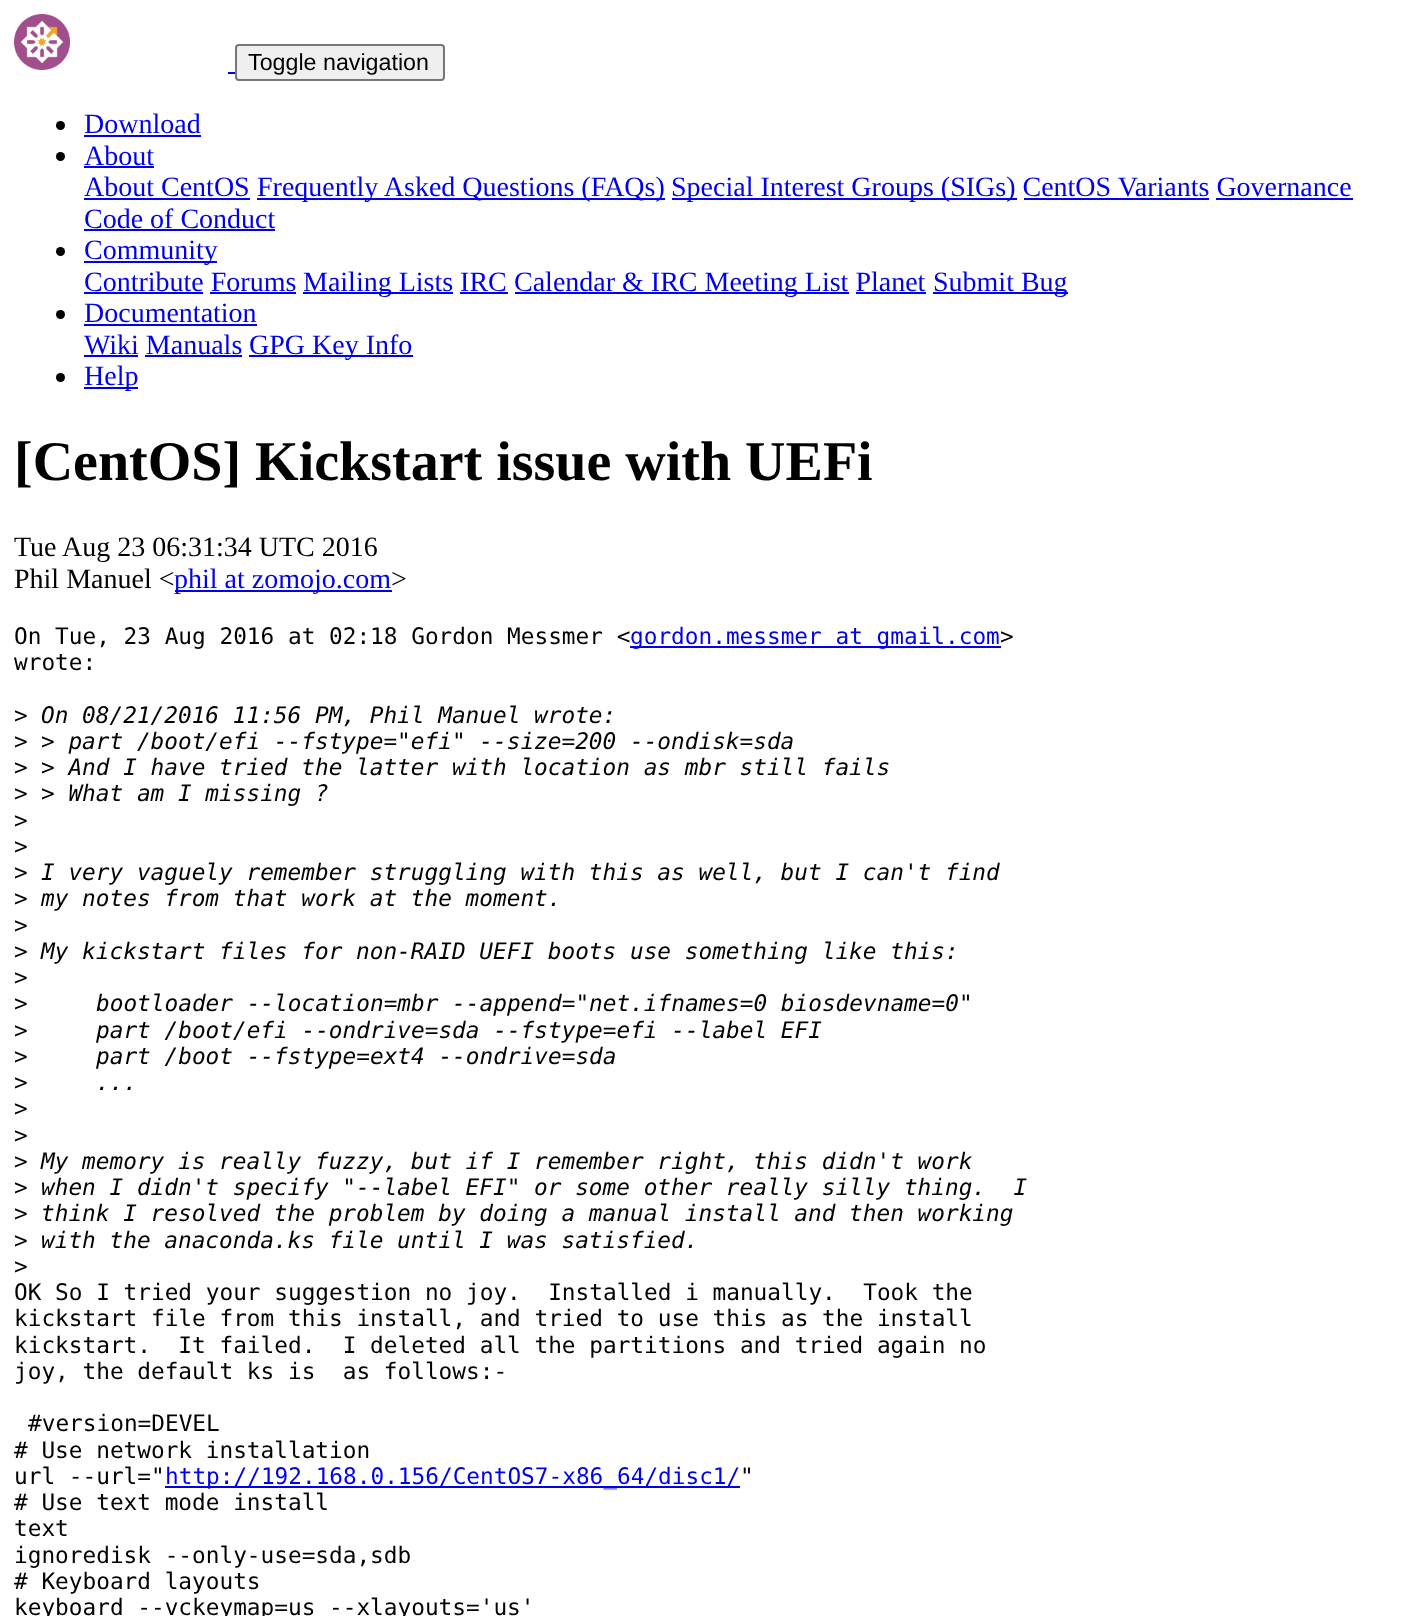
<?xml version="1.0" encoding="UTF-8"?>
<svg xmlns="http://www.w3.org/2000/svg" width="1412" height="1616">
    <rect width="100%" height="100%" fill="#FFFFFF"/>
    <image x="14" y="14" width="56" height="56" href="img_01.png"/>
    <rect x="228" y="72" width="7" height="2" fill="#0000EE"/>
    <rect x="236" y="45" width="208" height="35" rx="3" fill="#EFEFEF" stroke="#767676" stroke-width="2"/>
    <text x="248" y="70" font-family="Liberation Sans" font-size="23.25" fill="#000000">Toggle navigation</text>
    <circle cx="60.5" cy="125.5" r="4.5" fill="#000000"/>
    <text x="84" y="133" font-family="Liberation Serif" font-size="28" fill="#0000EE">Download</text>
    <rect x="84" y="135" width="117" height="2" fill="#0000EE"/>
    <circle cx="60.5" cy="156.5" r="4.5" fill="#000000"/>
    <text x="84" y="165" font-family="Liberation Serif" font-size="28" fill="#0000EE">About</text>
    <rect x="84" y="166" width="70" height="2" fill="#0000EE"/>
    <text x="84" y="196" font-family="Liberation Serif" font-size="28" fill="#0000EE">About CentOS</text>
    <rect x="84" y="198" width="166" height="2" fill="#0000EE"/>
    <rect x="257" y="198" width="408" height="2" fill="#0000EE"/>
    <text x="257" y="196" font-family="Liberation Serif" font-size="28" fill="#0000EE">Frequently Asked Questions (FAQs)</text>
    <rect x="672" y="198" width="345" height="2" fill="#0000EE"/>
    <text x="671" y="196" font-family="Liberation Serif" font-size="28" fill="#0000EE">Special Interest Groups (SIGs) CentOS Variants Governance</text>
    <rect x="1024" y="198" width="185" height="2" fill="#0000EE"/>
    <rect x="1216" y="198" width="137" height="2" fill="#0000EE"/>
    <text x="84" y="228" font-family="Liberation Serif" font-size="28" fill="#0000EE">Code of Conduct</text>
    <rect x="84" y="229" width="191" height="2" fill="#0000EE"/>
    <circle cx="60.5" cy="251.5" r="4.5" fill="#000000"/>
    <rect x="84" y="261" width="133" height="2" fill="#0000EE"/>
    <text font-family="Liberation Serif" font-size="28" fill="#0000EE">
        <tspan x="84" y="259">Community</tspan>
        <tspan x="84" y="291">Contribute Forums</tspan>
    </text>
    <rect x="84" y="292" width="119" height="2" fill="#0000EE"/>
    <rect x="303" y="292" width="150" height="2" fill="#0000EE"/>
    <text x="303" y="291" font-family="Liberation Serif" font-size="28" fill="#0000EE">Mailing Lists IRC</text>
    <rect x="515" y="292" width="334" height="2" fill="#0000EE"/>
    <text x="514" y="291" font-family="Liberation Serif" font-size="28" fill="#0000EE">Calendar &amp; IRC Meeting List Planet</text>
    <rect x="933" y="292" width="135" height="2" fill="#0000EE"/>
    <text x="933" y="291" font-family="Liberation Serif" font-size="28" fill="#0000EE">Submit Bug</text>
    <rect x="210" y="292" width="86" height="2" fill="#0000EE"/>
    <rect x="460" y="292" width="48" height="2" fill="#0000EE"/>
    <rect x="856" y="292" width="70" height="2" fill="#0000EE"/>
    <circle cx="60.5" cy="314.5" r="4.5" fill="#000000"/>
    <text x="84" y="322" font-family="Liberation Serif" font-size="28" fill="#0000EE">Documentation</text>
    <rect x="84" y="324" width="173" height="2" fill="#0000EE"/>
    <text x="84" y="354" font-family="Liberation Serif" font-size="28" fill="#0000EE">Wiki Manuals</text>
    <rect x="84" y="355" width="54" height="2" fill="#0000EE"/>
    <rect x="249" y="355" width="164" height="2" fill="#0000EE"/>
    <text x="249" y="354" font-family="Liberation Serif" font-size="28" fill="#0000EE">GPG Key Info</text>
    <rect x="145" y="355" width="97" height="2" fill="#0000EE"/>
    <circle cx="60.5" cy="377.5" r="4.5" fill="#000000"/>
    <rect x="84" y="387" width="54" height="2" fill="#0000EE"/>
    <text x="84" y="385" font-family="Liberation Serif" font-size="28" fill="#0000EE">Help</text>
    <text x="14" y="480" font-family="Liberation Serif" font-size="56" font-weight="700" fill="#000000">[CentOS] Kickstart issue with UEFi</text>
    <text font-family="Liberation Serif" font-size="28" fill="#000000">
        <tspan x="14" y="556">Tue Aug 23 06:31:34 UTC 2016</tspan>
        <tspan x="14" y="588">Phil Manuel &lt;</tspan>
    </text>
    <rect x="175" y="590" width="217" height="2" fill="#0000EE"/>
    <text x="174" y="588" font-family="Liberation Serif" font-size="28" fill="#0000EE">phil at zomojo.com</text>
    <text x="391" y="588" font-family="Liberation Serif" font-size="28" fill="#000000">&gt;</text>
    <text x="14" y="644" font-family="DejaVu Sans Mono" font-size="22.75" fill="#000000">On Tue, 23 Aug 2016 at 02:18 Gordon Messmer &lt;</text>
    <rect x="630" y="646" width="371" height="2" fill="#0000EE"/>
    <text x="630" y="644" font-family="DejaVu Sans Mono" font-size="22.75" fill="#0000EE">gordon.messmer at gmail.com</text>
    <text x="1000" y="644" font-family="DejaVu Sans Mono" font-size="22.75" fill="#000000">&gt;</text>
    <text x="14" y="670" font-family="DejaVu Sans Mono" font-size="22.75" fill="#000000">wrote:</text>
    <text x="14" y="723" font-family="DejaVu Sans Mono" font-size="22.75" fill="#000000">&gt;</text>
    <text x="41" y="723" font-family="DejaVu Sans Mono" font-size="22.75" font-style="italic" fill="#000000">On 08/21/2016 11:56 PM, Phil Manuel wrote:</text>
    <text x="14" y="749" font-family="DejaVu Sans Mono" font-size="22.75" fill="#000000">&gt;</text>
    <text x="41" y="749" font-family="DejaVu Sans Mono" font-size="22.75" font-style="italic" fill="#000000">&gt; part /boot/efi --fstype="efi" --size=200 --ondisk=sda</text>
    <text x="14" y="775" font-family="DejaVu Sans Mono" font-size="22.75" fill="#000000">&gt;</text>
    <text x="41" y="775" font-family="DejaVu Sans Mono" font-size="22.75" font-style="italic" fill="#000000">&gt; And I have tried the latter with location as mbr still fails</text>
    <text x="14" y="801" font-family="DejaVu Sans Mono" font-size="22.75" fill="#000000">&gt;</text>
    <text x="41" y="801" font-family="DejaVu Sans Mono" font-size="22.75" font-style="italic" fill="#000000">&gt; What am I missing ?</text>
    <text font-family="DejaVu Sans Mono" font-size="22.75" fill="#000000">
        <tspan x="14" y="828">&gt;</tspan>
        <tspan x="14" y="854">&gt;</tspan>
        <tspan x="14" y="880">&gt;</tspan>
    </text>
    <text x="41" y="880" font-family="DejaVu Sans Mono" font-size="22.75" font-style="italic" fill="#000000">I very vaguely remember struggling with this as well, but I can't find</text>
    <text x="14" y="906" font-family="DejaVu Sans Mono" font-size="22.75" fill="#000000">&gt;</text>
    <text x="41" y="906" font-family="DejaVu Sans Mono" font-size="22.75" font-style="italic" fill="#000000">my notes from that work at the moment.</text>
    <text font-family="DejaVu Sans Mono" font-size="22.75" fill="#000000">
        <tspan x="14" y="933">&gt;</tspan>
        <tspan x="14" y="959">&gt;</tspan>
    </text>
    <text x="41" y="959" font-family="DejaVu Sans Mono" font-size="22.75" font-style="italic" fill="#000000">My kickstart files for non-RAID UEFI boots use something like this:</text>
    <text font-family="DejaVu Sans Mono" font-size="22.75" fill="#000000">
        <tspan x="14" y="985">&gt;</tspan>
        <tspan x="14" y="1011">&gt;</tspan>
    </text>
    <text x="96" y="1011" font-family="DejaVu Sans Mono" font-size="22.75" font-style="italic" fill="#000000">bootloader --location=mbr --append="net.ifnames=0 biosdevname=0"</text>
    <text x="14" y="1038" font-family="DejaVu Sans Mono" font-size="22.75" fill="#000000">&gt;</text>
    <text x="96" y="1038" font-family="DejaVu Sans Mono" font-size="22.75" font-style="italic" fill="#000000">part /boot/efi --ondrive=sda --fstype=efi --label EFI</text>
    <text x="14" y="1064" font-family="DejaVu Sans Mono" font-size="22.75" fill="#000000">&gt;</text>
    <text x="96" y="1064" font-family="DejaVu Sans Mono" font-size="22.75" font-style="italic" fill="#000000">part /boot --fstype=ext4 --ondrive=sda</text>
    <text x="14" y="1090" font-family="DejaVu Sans Mono" font-size="22.75" fill="#000000">&gt;</text>
    <text x="96" y="1090" font-family="DejaVu Sans Mono" font-size="22.75" font-style="italic" fill="#000000">...</text>
    <text font-family="DejaVu Sans Mono" font-size="22.75" fill="#000000">
        <tspan x="14" y="1116">&gt;</tspan>
        <tspan x="14" y="1143">&gt;</tspan>
        <tspan x="14" y="1169">&gt;</tspan>
    </text>
    <text x="41" y="1169" font-family="DejaVu Sans Mono" font-size="22.75" font-style="italic" fill="#000000">My memory is really fuzzy, but if I remember right, this didn't work</text>
    <text x="14" y="1195" font-family="DejaVu Sans Mono" font-size="22.75" fill="#000000">&gt;</text>
    <text x="41" y="1195" font-family="DejaVu Sans Mono" font-size="22.75" font-style="italic" fill="#000000" xml:space="preserve">when I didn't specify "--label EFI" or some other really silly thing.  I</text>
    <text x="14" y="1221" font-family="DejaVu Sans Mono" font-size="22.75" fill="#000000">&gt;</text>
    <text x="41" y="1221" font-family="DejaVu Sans Mono" font-size="22.75" font-style="italic" fill="#000000">think I resolved the problem by doing a manual install and then working</text>
    <text x="14" y="1248" font-family="DejaVu Sans Mono" font-size="22.75" fill="#000000">&gt;</text>
    <text x="41" y="1248" font-family="DejaVu Sans Mono" font-size="22.75" font-style="italic" fill="#000000">with the anaconda.ks file until I was satisfied.</text>
    <text font-family="DejaVu Sans Mono" font-size="22.75" fill="#000000" xml:space="preserve"><tspan x="14" y="1274">&gt;</tspan><tspan x="14" y="1300">OK So I tried your suggestion no joy.  Installed i manually.  Took the</tspan><tspan x="14" y="1326">kickstart file from this install, and tried to use this as the install</tspan><tspan x="14" y="1353">kickstart.  It failed.  I deleted all the partitions and tried again no</tspan><tspan x="14" y="1379">joy, the default ks is  as follows:-</tspan></text>
    <text x="28" y="1431" font-family="DejaVu Sans Mono" font-size="22.75" fill="#000000">#version=DEVEL</text>
    <text font-family="DejaVu Sans Mono" font-size="22.75" fill="#000000">
        <tspan x="14" y="1458"># Use network installation</tspan>
        <tspan x="14" y="1484">url --url="</tspan>
    </text>
    <rect x="165" y="1486" width="575" height="2" fill="#0000EE"/>
    <text x="165" y="1484" font-family="DejaVu Sans Mono" font-size="22.75" fill="#0000EE">http://192.168.0.156/CentOS7-x86_64/disc1/</text>
    <text x="740" y="1484" font-family="DejaVu Sans Mono" font-size="22.75" fill="#000000">"</text>
    <text font-family="DejaVu Sans Mono" font-size="22.75" fill="#000000">
        <tspan x="14" y="1510"># Use text mode install</tspan>
        <tspan x="14" y="1536">text</tspan>
        <tspan x="14" y="1563">ignoredisk --only-use=sda,sdb</tspan>
        <tspan x="14" y="1589"># Keyboard layouts</tspan>
        <tspan x="14" y="1615">keyboard --vckeymap=us --xlayouts='us'</tspan>
    </text>
</svg>
